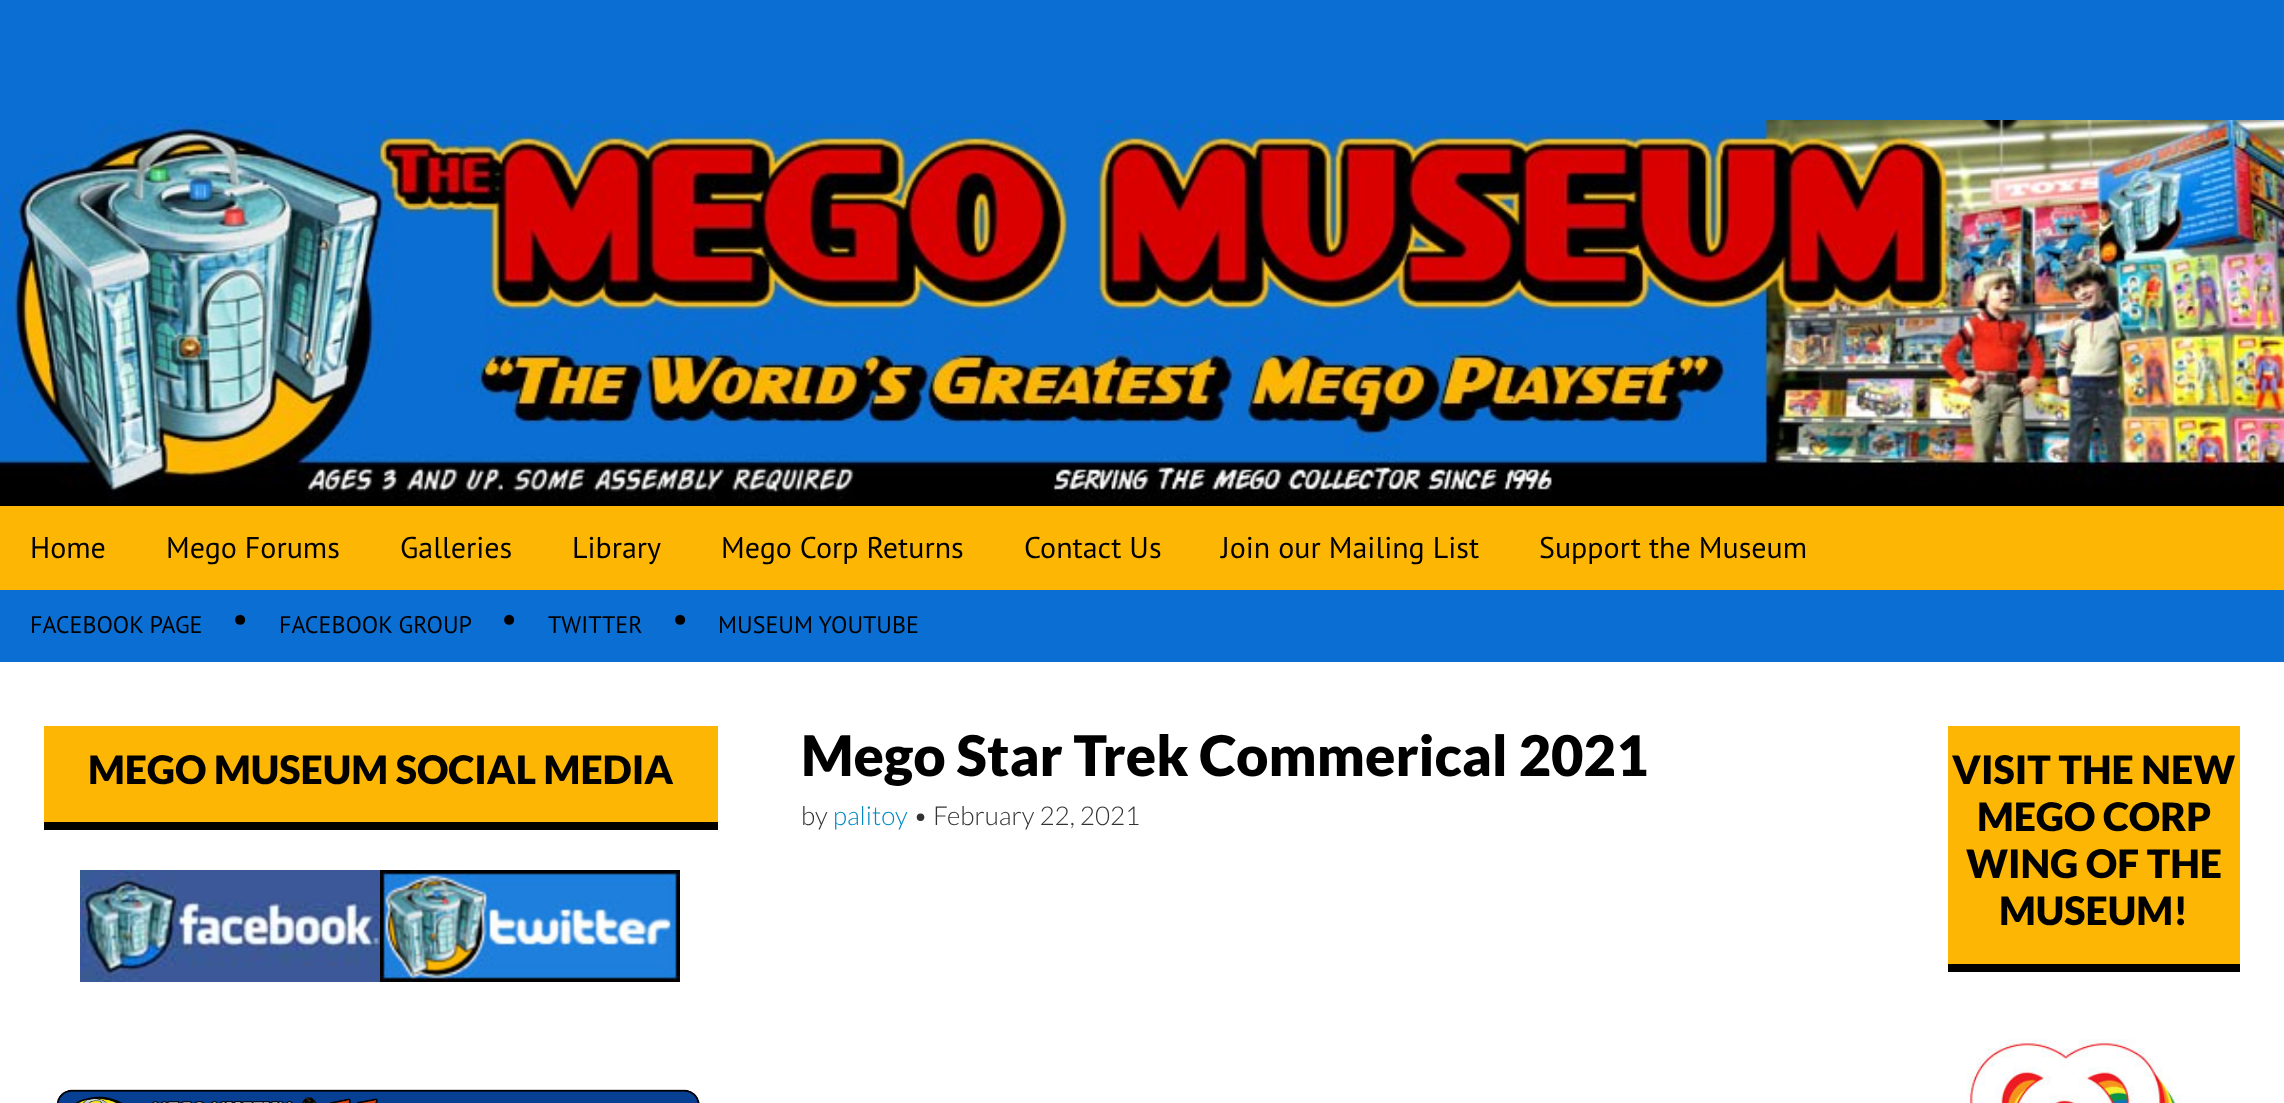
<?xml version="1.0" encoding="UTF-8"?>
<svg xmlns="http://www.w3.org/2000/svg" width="2284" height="1103">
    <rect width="100%" height="100%" fill="#FFFFFF"/>
    <rect x="0" y="0" width="2284" height="662" fill="#0B6ED3"/>
    <image x="0" y="120" width="2284" height="386" href="img_01.png"/>
    <rect x="0" y="506" width="2284" height="84" fill="#FDB604"/>
    <text x="30" y="558" font-family="PT Sans" font-size="30" fill="#000000">Home</text>
    <text x="166" y="558" font-family="PT Sans" font-size="30" fill="#000000">Mego Forums</text>
    <text x="400" y="558" font-family="PT Sans" font-size="30" fill="#000000">Galleries</text>
    <text x="572" y="558" font-family="PT Sans" font-size="30" fill="#000000">Library</text>
    <text x="721" y="558" font-family="PT Sans" font-size="30" fill="#000000">Mego Corp Returns</text>
    <text x="1024" y="558" font-family="PT Sans" font-size="30" fill="#000000">Contact Us</text>
    <text x="1221" y="558" font-family="PT Sans" font-size="30" fill="#000000">Join our Mailing List</text>
    <text x="1539" y="558" font-family="PT Sans" font-size="30" fill="#000000">Support the Museum</text>
    <text x="30" y="633" font-family="PT Sans" font-size="24" fill="#000000">FACEBOOK PAGE</text>
    <text x="232" y="631" font-family="PT Sans" font-size="36" fill="#000000">•</text>
    <text x="279" y="633" font-family="PT Sans" font-size="24" fill="#000000">FACEBOOK GROUP</text>
    <text x="501" y="631" font-family="PT Sans" font-size="36" fill="#000000">•</text>
    <text x="548" y="633" font-family="PT Sans" font-size="24" fill="#000000">TWITTER</text>
    <text x="672" y="631" font-family="PT Sans" font-size="36" fill="#000000">•</text>
    <text x="718" y="633" font-family="PT Sans" font-size="24" fill="#000000">MUSEUM YOUTUBE</text>
    <rect x="44" y="726" width="674" height="96" fill="#FDB604"/>
    <rect x="44" y="822" width="674" height="8" fill="#000000"/>
    <text x="88" y="784" font-family="Lato" font-size="39.25" font-weight="900" fill="#000000">MEGO MUSEUM SOCIAL MEDIA</text>
    <image x="80" y="870" width="300" height="112" href="img_02.png"/>
    <image x="380" y="870" width="300" height="112" href="img_03.png"/>
    <image x="57" y="1089" width="643" height="14" href="img_04.png"/>
    <text x="801" y="776" font-family="Lato" font-size="56" font-weight="900" fill="#000000">Mego Star Trek Commerical 2021</text>
    <text x="801" y="825" font-family="Lato" font-size="26" font-weight="300" fill="#333333">by</text>
    <text x="833" y="825" font-family="Lato" font-size="26" font-weight="300" fill="#0089C4">palitoy</text>
    <text x="913" y="825" font-family="Lato" font-size="26" font-weight="300" fill="#333333">• February 22, 2021</text>
    <rect x="1948" y="726" width="292" height="238" fill="#FDB604"/>
    <rect x="1948" y="964" width="292" height="8" fill="#000000"/>
    <text x="1952" y="784" font-family="Lato" font-size="39.25" font-weight="900" fill="#000000">VISIT THE NEW</text>
    <text x="1977" y="831" font-family="Lato" font-size="39.25" font-weight="900" fill="#000000">MEGO CORP</text>
    <text x="1966" y="878" font-family="Lato" font-size="39.25" font-weight="900" fill="#000000">WING OF THE</text>
    <text x="1999" y="925" font-family="Lato" font-size="39.25" font-weight="900" fill="#000000">MUSEUM!</text>
    <image x="1967" y="1039" width="214" height="64" href="img_05.png"/>
</svg>
